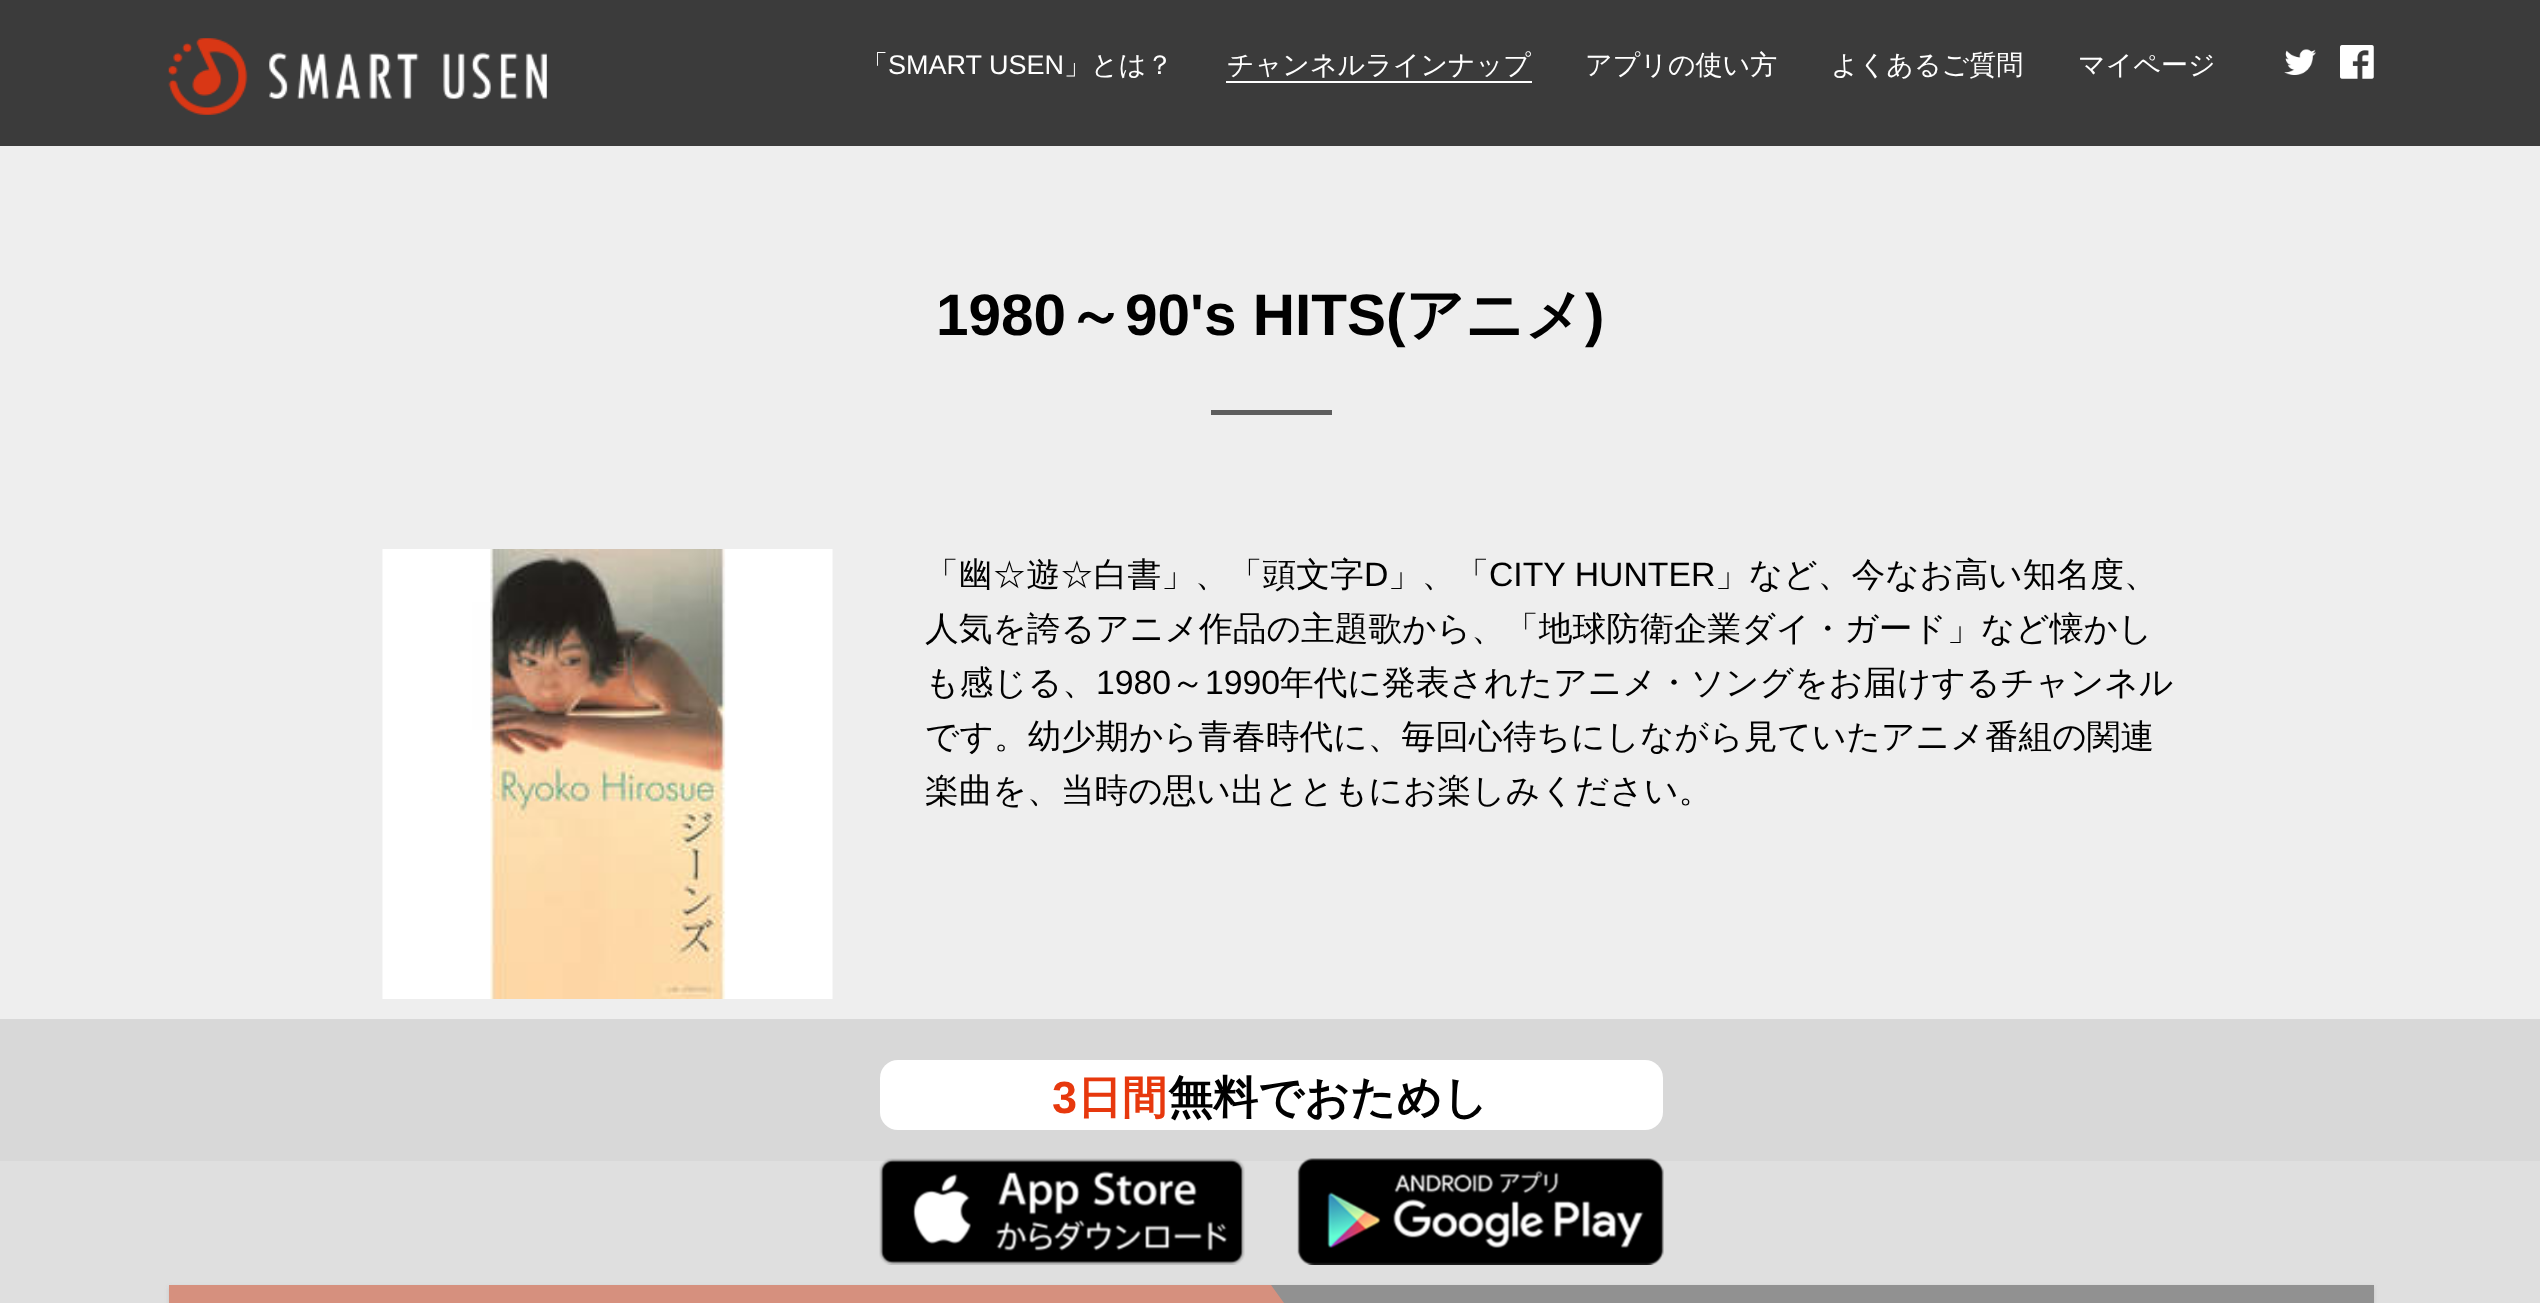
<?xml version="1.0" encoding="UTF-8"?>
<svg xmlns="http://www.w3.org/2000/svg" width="2540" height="1303">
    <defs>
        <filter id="blur1" x="-50%" y="-200%" width="200%" height="500%"><feGaussianBlur stdDeviation="2"/></filter>
    </defs>
    <rect width="100%" height="100%" fill="#DFDFDF"/>
    <rect x="0" y="0" width="2540" height="146" fill="#3B3B3B"/>
    <image x="168" y="38" width="379" height="77" href="img_01.png"/>
    <text x="861" y="74" font-family="WenQuanYi Zen Hei" font-size="27" font-weight="500" fill="#FFFFFF">「</text>
    <text x="888" y="74" font-family="Liberation Sans" font-size="27" fill="#FFFFFF">SMART USEN</text>
    <text x="1064" y="74" font-family="WenQuanYi Zen Hei" font-size="27" font-weight="500" fill="#FFFFFF">」とは？</text>
    <text x="1227" y="74" font-family="WenQuanYi Zen Hei" font-size="27" font-weight="500" fill="#FFFFFF">チャンネルラインナップ</text>
    <rect x="1226" y="81" width="306" height="2" fill="#FFFFFF"/>
    <text x="1585" y="74" font-family="WenQuanYi Zen Hei" font-size="27" font-weight="500" fill="#FFFFFF">アプリの使い方</text>
    <text x="1831" y="74" font-family="WenQuanYi Zen Hei" font-size="27" font-weight="500" fill="#FFFFFF">よくあるご質問</text>
    <text x="2078" y="74" font-family="WenQuanYi Zen Hei" font-size="27" font-weight="500" fill="#FFFFFF">マイページ</text>
    <image x="2284" y="49" width="32" height="26" href="img_02.png"/>
    <image x="2340" y="45" width="34" height="34" href="img_03.png"/>
    <rect x="0" y="146" width="2540" height="873" fill="#EEEEEE"/>
    <rect x="0" y="1019" width="2540" height="142" fill="#D8D8D8"/>
    <text x="936" y="335" font-family="Liberation Sans" font-size="58.5" font-weight="700" fill="#000000">1980</text>
    <text x="1066" y="335" font-family="WenQuanYi Zen Hei" font-size="58.5" font-weight="700" fill="#000000">～</text>
    <text x="1125" y="335" font-family="Liberation Sans" font-size="58.5" font-weight="700" fill="#000000">90's HITS(</text>
    <text x="1405" y="335" font-family="WenQuanYi Zen Hei" font-size="58.5" font-weight="700" fill="#000000">アニメ</text>
    <text x="1585" y="335" font-family="Liberation Sans" font-size="58.5" font-weight="700" fill="#000000">)</text>
    <rect x="1211" y="410" width="121" height="5" fill="#5D5D5D"/>
    <image x="382" y="549" width="451" height="450" href="img_04.png"/>
    <text x="925" y="586" font-family="WenQuanYi Zen Hei" font-size="33.75" font-weight="500" fill="#000000">「幽☆遊☆白書」、「頭文字</text>
    <text x="1364" y="586" font-family="Liberation Sans" font-size="33.75" fill="#000000">D</text>
    <text x="1388" y="586" font-family="WenQuanYi Zen Hei" font-size="33.75" font-weight="500" fill="#000000">」、「</text>
    <text x="1489" y="586" font-family="Liberation Sans" font-size="33.75" fill="#000000">CITY HUNTER</text>
    <text x="1715" y="586" font-family="WenQuanYi Zen Hei" font-size="33.75" font-weight="500" fill="#000000">」など、今なお高い知名度、</text>
    <text font-family="WenQuanYi Zen Hei" font-size="33.75" font-weight="500" fill="#000000">
        <tspan x="925" y="640">人気を誇るアニメ作品の主題歌から、「地球防衛企業ダイ・ガード」など懐かし</tspan>
        <tspan x="925" y="694">も感じる、</tspan>
    </text>
    <text x="1096" y="694" font-family="Liberation Sans" font-size="33.75" fill="#000000">1980</text>
    <text x="1171" y="694" font-family="WenQuanYi Zen Hei" font-size="33.75" font-weight="500" fill="#000000">～</text>
    <text x="1205" y="694" font-family="Liberation Sans" font-size="33.75" fill="#000000">1990</text>
    <text x="1280" y="694" font-family="WenQuanYi Zen Hei" font-size="33.75" font-weight="500" fill="#000000">年代に発表されたアニメ・ソングをお届けするチャンネル</text>
    <text font-family="WenQuanYi Zen Hei" font-size="33.75" font-weight="500" fill="#000000">
        <tspan x="925" y="748">です。幼少期から青春時代に、毎回心待ちにしながら見ていたアニメ番組の関連</tspan>
        <tspan x="925" y="802">楽曲を、当時の思い出とともにお楽しみください。</tspan>
    </text>
    <rect x="880" y="1060" width="783" height="70" rx="18" fill="#FFFFFF"/>
    <text x="1052" y="1113" font-family="Liberation Sans" font-size="45" font-weight="700" fill="#E7380D">3</text>
    <text x="1077" y="1113" font-family="WenQuanYi Zen Hei" font-size="45" font-weight="700" fill="#E7380D">日間</text>
    <text x="1168" y="1113" font-family="WenQuanYi Zen Hei" font-size="45" font-weight="700" fill="#000000">無料でおためし</text>
    <image x="879" y="1158" width="366" height="107" href="img_05.png"/>
    <image x="1297" y="1158" width="367" height="107" href="img_06.png"/>
    <rect x="169" y="1287" width="2205" height="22" fill="#797979" fill-opacity="0.25" filter="url(#blur1)"/>
    <rect x="169" y="1285" width="1102" height="18" fill="#D6907E"/>
    <rect x="1271" y="1285" width="1103" height="18" fill="#919191"/>
    <path d="M 1271 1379 V 1285 L 1305 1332 Z" fill="#D6907E"/>
</svg>
